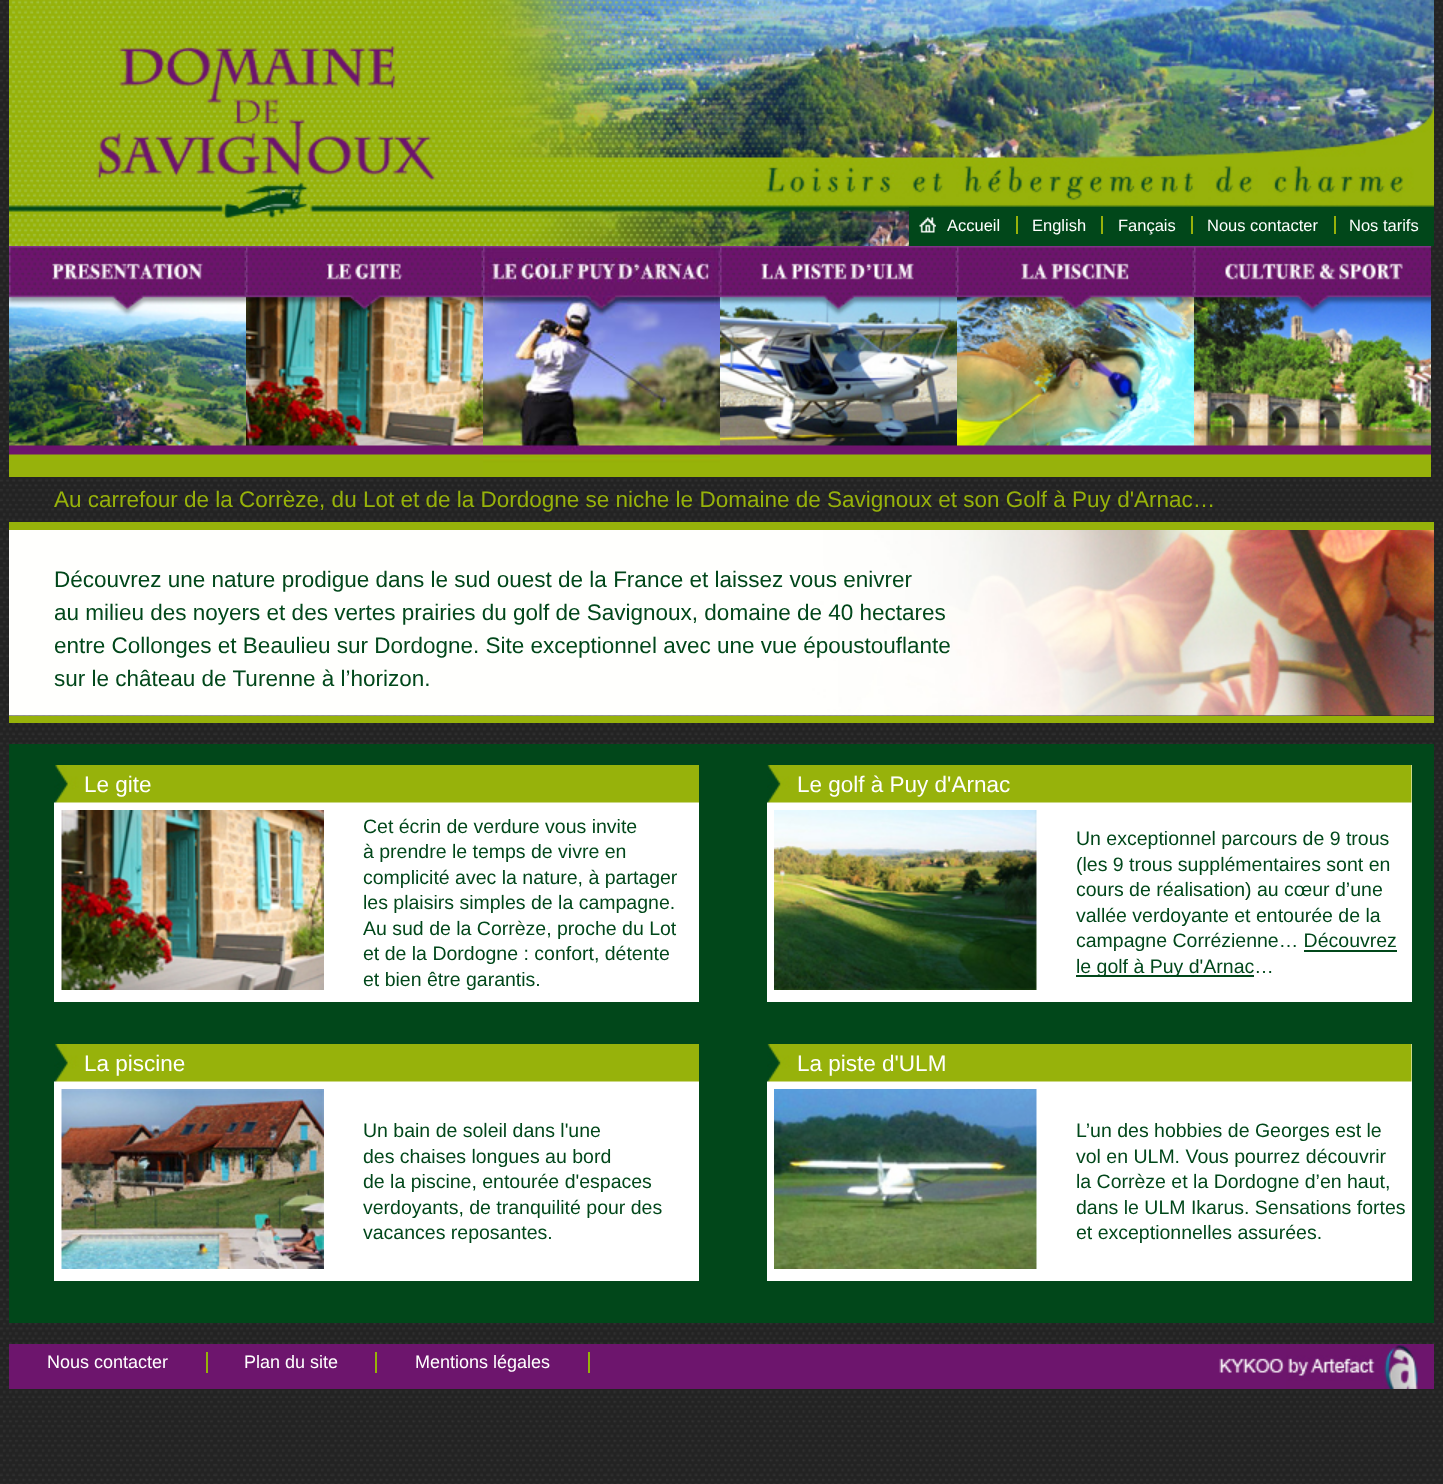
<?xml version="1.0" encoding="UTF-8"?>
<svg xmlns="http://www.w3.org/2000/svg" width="1443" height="1484">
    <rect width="100%" height="100%" fill="#232323"/>
    <image x="0" y="1" width="1443" height="1483" href="img_01.png"/>
    <image x="9" y="0" width="1425" height="246" href="img_02.png"/>
    <rect x="909" y="207" width="525" height="39" fill="#01471A"/>
    <image x="919" y="217" width="17" height="16" href="img_03.png"/>
    <text x="947" y="231" font-family="Liberation Sans" font-size="16.5" fill="#FFFFFF">Accueil</text>
    <rect x="1016" y="216" width="2" height="18" fill="#97B20A"/>
    <text x="1032" y="231" font-family="Liberation Sans" font-size="16.5" fill="#FFFFFF">English</text>
    <rect x="1101" y="216" width="2" height="18" fill="#97B20A"/>
    <text x="1118" y="231" font-family="Liberation Sans" font-size="16.5" fill="#FFFFFF">Fançais</text>
    <rect x="1191" y="216" width="2" height="18" fill="#97B20A"/>
    <text x="1207" y="231" font-family="Liberation Sans" font-size="16.5" fill="#FFFFFF">Nous contacter</text>
    <rect x="1334" y="216" width="2" height="18" fill="#97B20A"/>
    <text x="1349" y="231" font-family="Liberation Sans" font-size="16.5" fill="#FFFFFF">Nos tarifs</text>
    <image x="9" y="246" width="237" height="231" href="img_04.png"/>
    <image x="246" y="246" width="237" height="231" href="img_05.png"/>
    <image x="483" y="246" width="237" height="231" href="img_06.png"/>
    <image x="720" y="246" width="237" height="231" href="img_07.png"/>
    <image x="957" y="246" width="237" height="231" href="img_08.png"/>
    <image x="1194" y="246" width="237" height="231" href="img_09.png"/>
    <text x="54" y="507" font-family="Liberation Sans" font-size="22.5" fill="#97B20A">Au carrefour de la Corrèze, du Lot et de la Dordogne se niche le Domaine de Savignoux et son Golf à Puy d'Arnac…</text>
    <image x="9" y="530" width="1425" height="186" href="img_10.png"/>
    <rect x="9" y="522" width="1425" height="8" fill="#97B20A"/>
    <rect x="9" y="716" width="1425" height="7" fill="#97B20A"/>
    <text font-family="Liberation Sans" font-size="22.5" fill="#01471A">
        <tspan x="54" y="587">Découvrez une nature prodigue dans le sud ouest de la France et laissez vous enivrer</tspan>
        <tspan x="54" y="620">au milieu des noyers et des vertes prairies du golf de Savignoux, domaine de 40 hectares</tspan>
        <tspan x="54" y="653">entre Collonges et Beaulieu sur Dordogne. Site exceptionnel avec une vue époustouflante</tspan>
        <tspan x="54" y="686">sur le château de Turenne à l’horizon.</tspan>
    </text>
    <rect x="9" y="744" width="1425" height="579" fill="#01471A"/>
    <rect x="54" y="802" width="645" height="200" fill="#FFFFFF"/>
    <image x="54" y="765" width="645" height="38" href="img_11.png"/>
    <text x="84" y="792" font-family="Liberation Sans" font-size="22.5" fill="#FFFFFF">Le gite</text>
    <image x="61" y="810" width="263" height="180" href="img_12.png"/>
    <text font-family="Liberation Sans" font-size="19.5" fill="#01471A">
        <tspan x="363" y="833">Cet écrin de verdure vous invite</tspan>
        <tspan x="363" y="858">à prendre le temps de vivre en</tspan>
        <tspan x="363" y="884">complicité avec la nature, à partager</tspan>
        <tspan x="363" y="909">les plaisirs simples de la campagne.</tspan>
        <tspan x="363" y="935">Au sud de la Corrèze, proche du Lot</tspan>
        <tspan x="363" y="960">et de la Dordogne : confort, détente</tspan>
        <tspan x="363" y="986">et bien être garantis.</tspan>
    </text>
    <rect x="54" y="1081" width="645" height="200" fill="#FFFFFF"/>
    <image x="54" y="1044" width="645" height="38" href="img_11.png"/>
    <text x="84" y="1071" font-family="Liberation Sans" font-size="22.5" fill="#FFFFFF">La piscine</text>
    <image x="61" y="1089" width="263" height="180" href="img_13.png"/>
    <text font-family="Liberation Sans" font-size="19.5" fill="#01471A">
        <tspan x="363" y="1137">Un bain de soleil dans l'une</tspan>
        <tspan x="363" y="1163">des chaises longues au bord</tspan>
        <tspan x="363" y="1188">de la piscine, entourée d'espaces</tspan>
        <tspan x="363" y="1214">verdoyants, de tranquilité pour des</tspan>
        <tspan x="363" y="1239">vacances reposantes.</tspan>
    </text>
    <rect x="767" y="765" width="645" height="237" fill="#FFFFFF"/>
    <image x="767" y="765" width="645" height="38" href="img_14.png"/>
    <text x="797" y="792" font-family="Liberation Sans" font-size="22.5" fill="#FFFFFF">Le golf à Puy d'Arnac</text>
    <image x="774" y="810" width="263" height="180" href="img_15.png"/>
    <text font-family="Liberation Sans" font-size="19.5" fill="#01471A">
        <tspan x="1076" y="845">Un exceptionnel parcours de 9 trous</tspan>
        <tspan x="1076" y="871">(les 9 trous supplémentaires sont en</tspan>
        <tspan x="1076" y="896">cours de réalisation) au cœur d’une</tspan>
        <tspan x="1076" y="922">vallée verdoyante et entourée de la</tspan>
        <tspan x="1076" y="947">campagne Corrézienne… Découvrez</tspan>
    </text>
    <rect x="1076" y="975" width="178" height="2" fill="#01471A"/>
    <text x="1076" y="973" font-family="Liberation Sans" font-size="19.5" fill="#01471A">le golf à Puy d'Arnac…</text>
    <rect x="1304" y="950" width="93" height="2" fill="#01471A"/>
    <rect x="767" y="1044" width="645" height="237" fill="#FFFFFF"/>
    <image x="767" y="1044" width="645" height="38" href="img_14.png"/>
    <text x="797" y="1071" font-family="Liberation Sans" font-size="22.5" fill="#FFFFFF">La piste d'ULM</text>
    <image x="774" y="1089" width="263" height="180" href="img_16.png"/>
    <text font-family="Liberation Sans" font-size="19.5" fill="#01471A">
        <tspan x="1076" y="1137">L’un des hobbies de Georges est le</tspan>
        <tspan x="1076" y="1163">vol en ULM. Vous pourrez découvrir</tspan>
        <tspan x="1076" y="1188">la Corrèze et la Dordogne d’en haut,</tspan>
        <tspan x="1076" y="1214">dans le ULM Ikarus. Sensations fortes</tspan>
        <tspan x="1076" y="1239">et exceptionnelles assurées.</tspan>
    </text>
    <rect x="9" y="1344" width="1425" height="45" fill="#6D156D"/>
    <text x="47" y="1368" font-family="Liberation Sans" font-size="18" fill="#FFFFFF">Nous contacter</text>
    <rect x="206" y="1352" width="2" height="21" fill="#97B20A"/>
    <text x="244" y="1368" font-family="Liberation Sans" font-size="18" fill="#FFFFFF">Plan du site</text>
    <rect x="375" y="1352" width="2" height="21" fill="#97B20A"/>
    <text x="415" y="1368" font-family="Liberation Sans" font-size="18" fill="#FFFFFF">Mentions légales</text>
    <rect x="588" y="1352" width="2" height="21" fill="#97B20A"/>
    <image x="1219" y="1358" width="66" height="15" href="img_17.png"/>
    <image x="1286" y="1345" width="132" height="44" href="img_18.png"/>
</svg>
